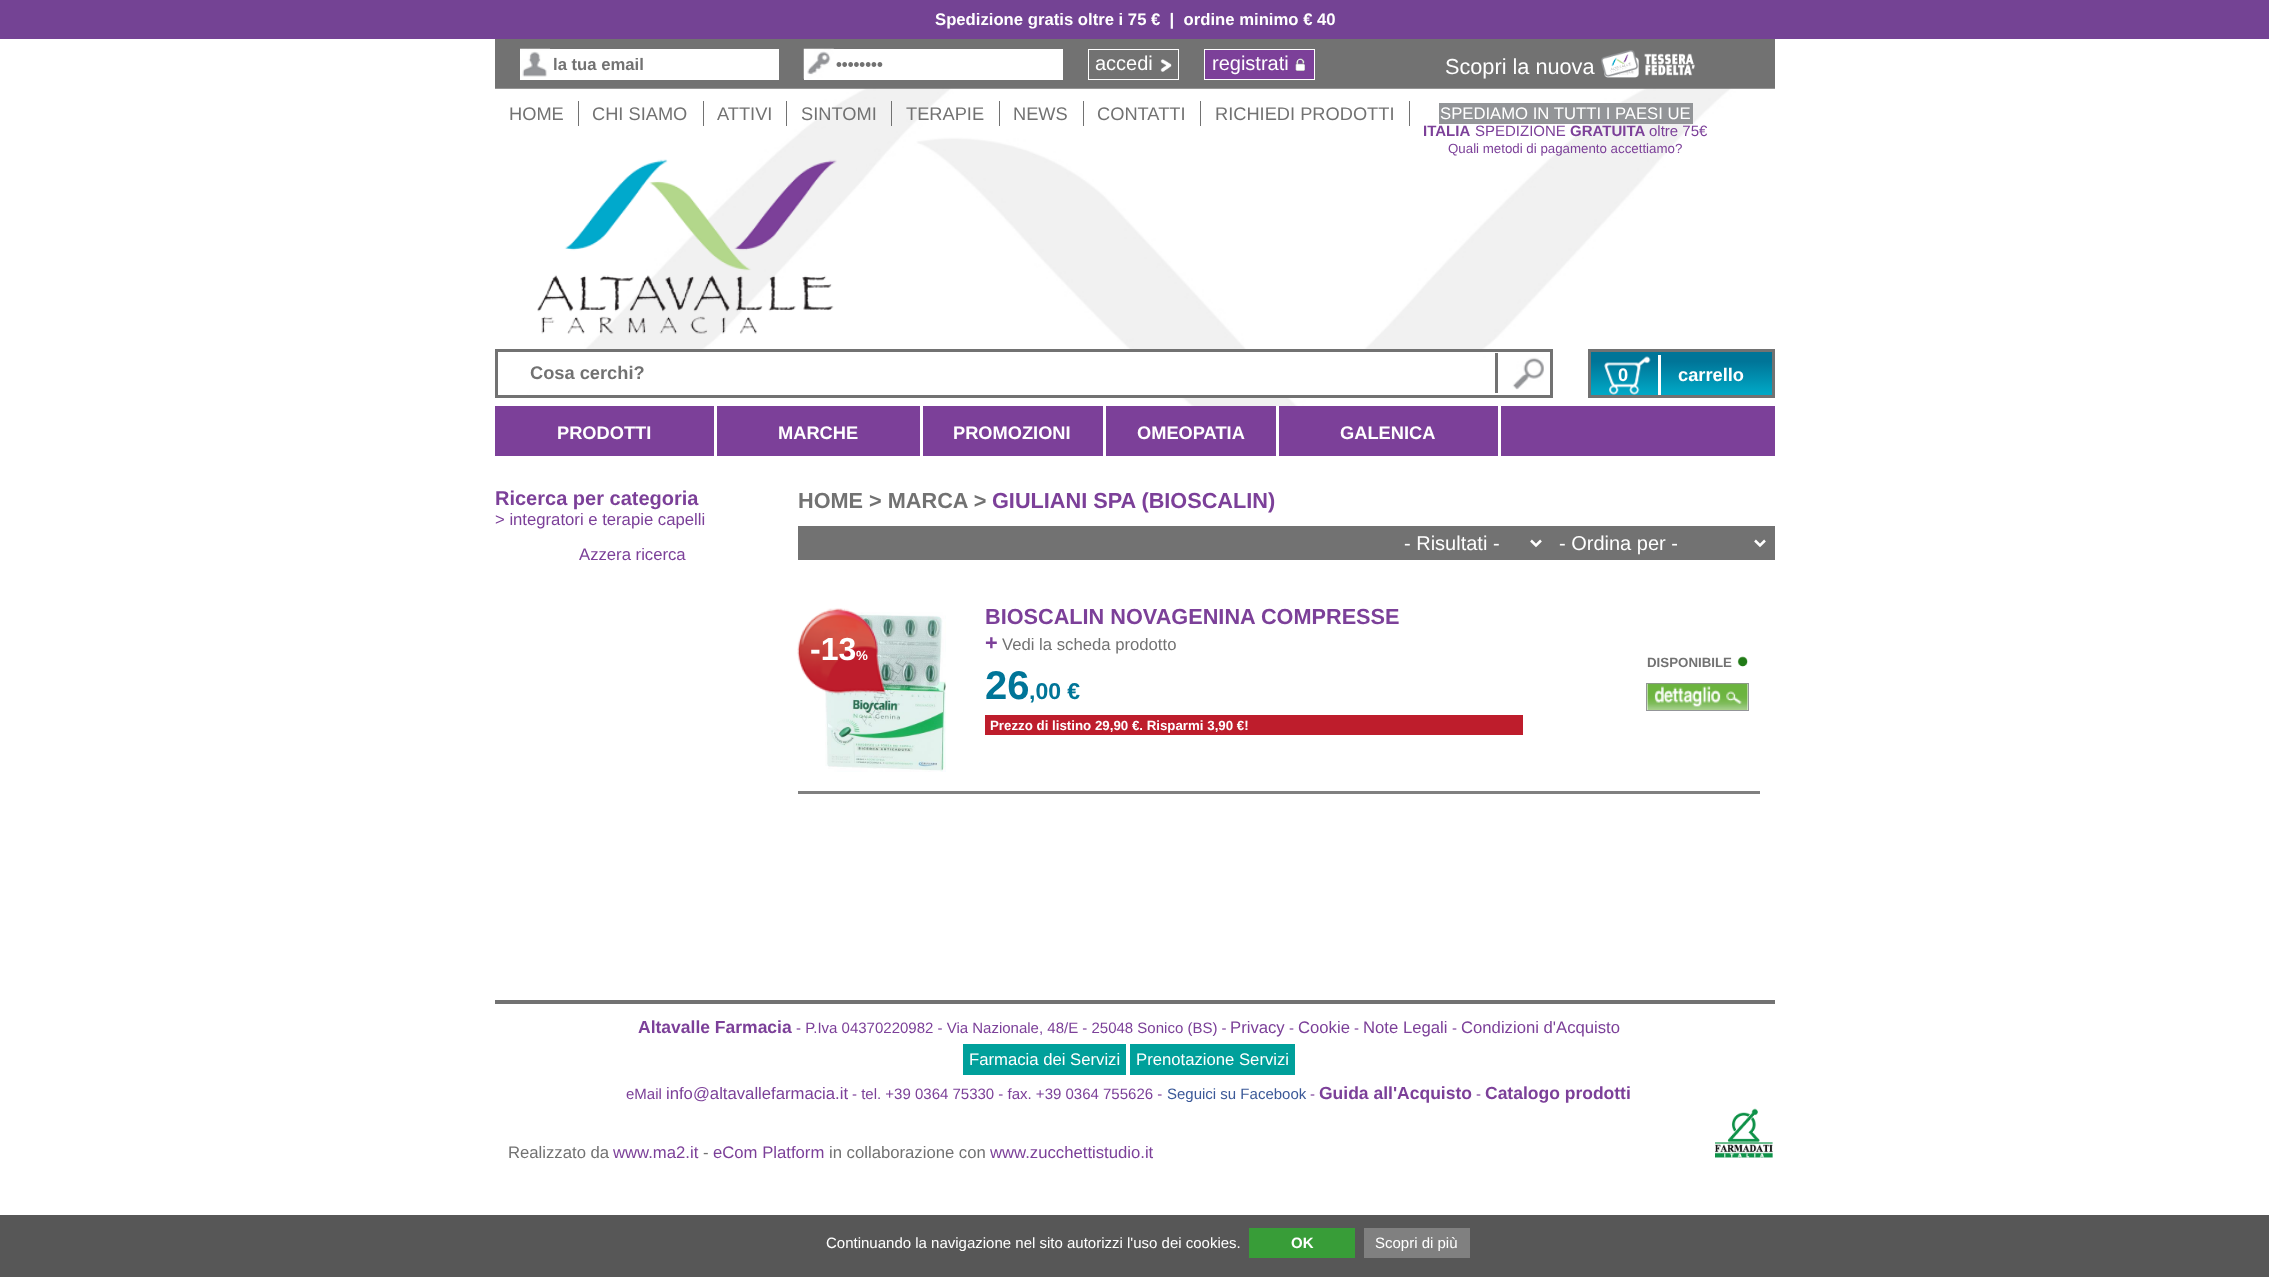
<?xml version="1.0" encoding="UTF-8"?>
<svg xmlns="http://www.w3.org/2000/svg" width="2269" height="1277">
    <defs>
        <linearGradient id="g1" gradientUnits="userSpaceOnUse" x1="1681" y1="351" x2="1681" y2="395"><stop offset="0.24" stop-color="#007598"/><stop offset="0.96" stop-color="#00A7C5"/></linearGradient>
    </defs>
    <rect width="100%" height="100%" fill="#FFFFFF"/>
    <rect x="0" y="0" width="2269" height="39" fill="#744394"/>
    <text x="935" y="25" font-family="Liberation Sans" font-size="16.7" font-weight="700" fill="#FFFFFF" xml:space="preserve">Spedizione gratis oltre i 75 €  |  ordine minimo € 40</text>
    <rect x="495" y="39" width="1280" height="50" fill="#727272"/>
    <rect x="520" y="49" width="259" height="31" fill="#FFFFFF"/>
    <image x="520" y="48" width="30" height="29" href="img_01.png"/>
    <text x="553" y="70" font-family="Liberation Sans" font-size="16.7" font-weight="700" fill="#727272">la tua email</text>
    <rect x="804" y="49" width="259" height="31" fill="#FFFFFF"/>
    <image x="803" y="48" width="31" height="31" href="img_02.png"/>
    <text x="836" y="70" font-family="Liberation Sans" font-size="16.7" font-weight="700" fill="#727272">••••••••</text>
    <image x="1160" y="59" width="12" height="13" href="img_03.png"/>
    <rect x="1088.5" y="49.5" width="90" height="30" fill="none" stroke="#FFFFFF"/>
    <text x="1095" y="70" font-family="Liberation Sans" font-size="20" fill="#FFFFFF">accedi</text>
    <rect x="1205" y="50" width="109" height="29" fill="#7C4099"/>
    <image x="1295" y="58" width="10" height="13" href="img_04.png"/>
    <rect x="1204.5" y="49.5" width="110" height="30" fill="none" stroke="#FFFFFF"/>
    <text x="1212" y="70" font-family="Liberation Sans" font-size="20" fill="#FFFFFF">registrati</text>
    <text x="1445" y="74" font-family="Liberation Sans" font-size="21.7" fill="#FFFFFF">Scopri la nuova</text>
    <image x="1601" y="50" width="94" height="28" href="img_05.png"/>
    <image x="495" y="88" width="1280" height="318" href="img_06.png"/>
    <rect x="578" y="101" width="1" height="25" fill="#727272"/>
    <text x="509" y="120" font-family="Liberation Sans" font-size="18.25" fill="#727272">HOME</text>
    <rect x="703" y="101" width="1" height="25" fill="#727272"/>
    <text x="592" y="120" font-family="Liberation Sans" font-size="18.25" fill="#727272">CHI SIAMO</text>
    <rect x="786" y="101" width="1" height="25" fill="#727272"/>
    <text x="717" y="120" font-family="Liberation Sans" font-size="18.25" fill="#727272">ATTIVI</text>
    <rect x="891" y="101" width="1" height="25" fill="#727272"/>
    <text x="801" y="120" font-family="Liberation Sans" font-size="18.25" fill="#727272">SINTOMI</text>
    <rect x="999" y="101" width="1" height="25" fill="#727272"/>
    <text x="906" y="120" font-family="Liberation Sans" font-size="18.25" fill="#727272">TERAPIE</text>
    <rect x="1083" y="101" width="1" height="25" fill="#727272"/>
    <text x="1013" y="120" font-family="Liberation Sans" font-size="18.25" fill="#727272">NEWS</text>
    <rect x="1200" y="101" width="1" height="25" fill="#727272"/>
    <text x="1097" y="120" font-family="Liberation Sans" font-size="18.25" fill="#727272">CONTATTI</text>
    <rect x="1409" y="101" width="1" height="25" fill="#727272"/>
    <text x="1215" y="120" font-family="Liberation Sans" font-size="18.25" fill="#727272">RICHIEDI PRODOTTI</text>
    <rect x="1439" y="103" width="254" height="21" fill="#939598"/>
    <text x="1440" y="119" font-family="Liberation Sans" font-size="16.7" fill="#FFFFFF">SPEDIAMO IN TUTTI I PAESI UE</text>
    <text x="1423" y="136" font-family="Liberation Sans" font-size="15" font-weight="700" fill="#7C4099">ITALIA</text>
    <text x="1475" y="136" font-family="Liberation Sans" font-size="15" fill="#7C4099">SPEDIZIONE</text>
    <text x="1570" y="136" font-family="Liberation Sans" font-size="15" font-weight="700" fill="#7C4099">GRATUITA</text>
    <text x="1649" y="136" font-family="Liberation Sans" font-size="15" fill="#7C4099">oltre 75€</text>
    <text x="1448" y="153" font-family="Liberation Sans" font-size="13.3" fill="#7C4099">Quali metodi di pagamento accettiamo?</text>
    <image x="537" y="159" width="300" height="175" href="img_07.png"/>
    <rect x="530" y="352" width="950" height="43" fill="#FFFFFF"/>
    <rect x="496.5" y="350.5" width="1055" height="46" fill="none" stroke="#727272" stroke-width="3"/>
    <rect x="1495" y="353" width="3" height="40" fill="#727272"/>
    <text x="530" y="379" font-family="Liberation Sans" font-size="18.25" font-weight="700" fill="#727272">Cosa cerchi?</text>
    <image x="1512" y="357" width="32" height="33" href="img_08.png"/>
    <rect x="1591" y="352" width="181" height="43" fill="url(#g1)"/>
    <rect x="1589.5" y="350.5" width="184" height="46" fill="none" stroke="#727272" stroke-width="3"/>
    <image x="1604" y="356" width="47" height="39" href="img_09.png"/>
    <text x="1618" y="381" font-family="Liberation Sans" font-size="18.25" font-weight="700" fill="#FFFFFF">0</text>
    <rect x="1658" y="355" width="3" height="40" fill="#FFFFFF"/>
    <text x="1678" y="381" font-family="Liberation Sans" font-size="18.25" font-weight="700" fill="#FFFFFF">carrello</text>
    <rect x="495" y="406" width="1280" height="50" fill="#7C4099"/>
    <rect x="714" y="406" width="3" height="53" fill="#FFFFFF"/>
    <text x="557" y="439" font-family="Liberation Sans" font-size="18.25" font-weight="700" fill="#FFFFFF">PRODOTTI</text>
    <rect x="920" y="406" width="3" height="53" fill="#FFFFFF"/>
    <text x="778" y="439" font-family="Liberation Sans" font-size="18.25" font-weight="700" fill="#FFFFFF">MARCHE</text>
    <rect x="1103" y="406" width="3" height="53" fill="#FFFFFF"/>
    <text x="953" y="439" font-family="Liberation Sans" font-size="18.25" font-weight="700" fill="#FFFFFF">PROMOZIONI</text>
    <rect x="1276" y="406" width="3" height="53" fill="#FFFFFF"/>
    <text x="1137" y="439" font-family="Liberation Sans" font-size="18.25" font-weight="700" fill="#FFFFFF">OMEOPATIA</text>
    <rect x="1498" y="406" width="3" height="53" fill="#FFFFFF"/>
    <text x="1340" y="439" font-family="Liberation Sans" font-size="18.25" font-weight="700" fill="#FFFFFF">GALENICA</text>
    <text x="495" y="505" font-family="Liberation Sans" font-size="20" font-weight="700" fill="#7C4099">Ricerca per categoria</text>
    <text x="495" y="525" font-family="Liberation Sans" font-size="16.7" fill="#7C4099">&gt; integratori e terapie capelli</text>
    <text x="579" y="560" font-family="Liberation Sans" font-size="16.7" fill="#7C4099">Azzera ricerca</text>
    <text x="798" y="508" font-family="Liberation Sans" font-size="21.7" font-weight="700" fill="#727272">HOME &gt; MARCA &gt;</text>
    <text x="992" y="508" font-family="Liberation Sans" font-size="21.7" font-weight="700" fill="#7C4099">GIULIANI SPA (BIOSCALIN)</text>
    <rect x="798" y="526" width="977" height="34" fill="#727272"/>
    <path d="M 1531 540.5 L 1536 545.5 L 1541 540.5" fill="none" stroke="#FFFFFF" stroke-width="2.5"/>
    <text x="1404" y="550" font-family="Liberation Sans" font-size="20" fill="#FFFFFF">- Risultati -</text>
    <path d="M 1755 540.5 L 1760 545.5 L 1765 540.5" fill="none" stroke="#FFFFFF" stroke-width="2.5"/>
    <text x="1559" y="550" font-family="Liberation Sans" font-size="20" fill="#FFFFFF">- Ordina per -</text>
    <rect x="798" y="791" width="962" height="3" fill="#808080"/>
    <image x="825" y="612" width="121" height="160" href="img_10.png"/>
    <image x="797" y="608" width="89" height="86" href="img_11.png"/>
    <text x="810" y="660" font-family="Liberation Sans" font-size="32" font-weight="700" fill="#FFFFFF">-13</text>
    <text x="856" y="660" font-family="Liberation Sans" font-size="13.3" font-weight="700" fill="#FFFFFF">%</text>
    <text font-family="Liberation Sans" font-size="21.7" font-weight="700" fill="#7C4099">
        <tspan x="985" y="624">BIOSCALIN NOVAGENINA COMPRESSE</tspan>
        <tspan x="985" y="650">+</tspan>
    </text>
    <text x="1002" y="650" font-family="Liberation Sans" font-size="16.7" fill="#727272">Vedi la scheda prodotto</text>
    <text x="985" y="699" font-family="Liberation Sans" font-size="40" font-weight="700" fill="#007598">26</text>
    <text x="1029" y="699" font-family="Liberation Sans" font-size="23" font-weight="700" fill="#007598">,00 €</text>
    <rect x="985" y="715" width="538" height="20" fill="#BE1D2C"/>
    <text x="990" y="730" font-family="Liberation Sans" font-size="13.3" font-weight="700" fill="#FFFFFF">Prezzo di listino 29,90 €. Risparmi 3,90 €!</text>
    <text x="1647" y="667" font-family="Liberation Sans" font-size="13.3" font-weight="700" fill="#727272">DISPONIBILE</text>
    <image x="1737" y="656" width="11" height="11" href="img_12.png"/>
    <rect x="1646.5" y="683.5" width="102" height="27" fill="none" stroke="#939598"/>
    <image x="1647" y="683" width="101" height="27" href="img_13.png"/>
    <rect x="495" y="1000" width="1280" height="4" fill="#727272"/>
    <text x="638" y="1033" font-family="Liberation Sans" font-size="17.5" font-weight="700" fill="#7C4099">Altavalle Farmacia</text>
    <text x="796" y="1033" font-family="Liberation Sans" font-size="15" fill="#7C4099">- P.Iva 04370220982 - Via Nazionale, 48/E - 25048 Sonico (BS) -</text>
    <text x="1230" y="1033" font-family="Liberation Sans" font-size="16.7" fill="#7C4099">Privacy</text>
    <text x="1289" y="1033" font-family="Liberation Sans" font-size="15" fill="#7C4099">-</text>
    <text x="1298" y="1033" font-family="Liberation Sans" font-size="16.7" fill="#7C4099">Cookie</text>
    <text x="1354" y="1033" font-family="Liberation Sans" font-size="15" fill="#7C4099">-</text>
    <text x="1363" y="1033" font-family="Liberation Sans" font-size="16.7" fill="#7C4099">Note Legali</text>
    <text x="1452" y="1033" font-family="Liberation Sans" font-size="15" fill="#7C4099">-</text>
    <text x="1461" y="1033" font-family="Liberation Sans" font-size="16.7" fill="#7C4099">Condizioni d'Acquisto</text>
    <rect x="963" y="1044" width="163" height="31" fill="#00A09B"/>
    <text x="969" y="1065" font-family="Liberation Sans" font-size="16.7" fill="#FFFFFF">Farmacia dei Servizi</text>
    <rect x="1130" y="1044" width="165" height="31" fill="#00A09B"/>
    <text x="1136" y="1065" font-family="Liberation Sans" font-size="16.7" fill="#FFFFFF">Prenotazione Servizi</text>
    <text x="626" y="1099" font-family="Liberation Sans" font-size="15" fill="#7C4099">eMail</text>
    <text x="666" y="1099" font-family="Liberation Sans" font-size="16.7" fill="#7C4099">info@altavallefarmacia.it</text>
    <text x="852" y="1099" font-family="Liberation Sans" font-size="15" fill="#7C4099">- tel. +39 0364 75330 - fax. +39 0364 755626 -</text>
    <text x="1167" y="1099" font-family="Liberation Sans" font-size="15" fill="#3B5998">Seguici su Facebook</text>
    <text x="1310" y="1099" font-family="Liberation Sans" font-size="15" fill="#7C4099">-</text>
    <text x="1319" y="1099" font-family="Liberation Sans" font-size="17.5" font-weight="700" fill="#7C4099">Guida all'Acquisto</text>
    <text x="1476" y="1099" font-family="Liberation Sans" font-size="15" fill="#7C4099">-</text>
    <text x="1485" y="1099" font-family="Liberation Sans" font-size="17.5" font-weight="700" fill="#7C4099">Catalogo prodotti</text>
    <text x="508" y="1158" font-family="Liberation Sans" font-size="16.7" fill="#727272">Realizzato da</text>
    <text x="613" y="1158" font-family="Liberation Sans" font-size="16.7" fill="#7C4099">www.ma2.it</text>
    <text x="703" y="1158" font-family="Liberation Sans" font-size="16.7" fill="#727272">-</text>
    <text x="713" y="1158" font-family="Liberation Sans" font-size="16.7" fill="#7C4099">eCom Platform</text>
    <text x="829" y="1158" font-family="Liberation Sans" font-size="16.7" fill="#727272">in collaborazione con</text>
    <text x="990" y="1158" font-family="Liberation Sans" font-size="16.7" fill="#7C4099">www.zucchettistudio.it</text>
    <image x="1715" y="1108" width="58" height="50" href="img_14.png"/>
    <rect x="0" y="1215" width="2269" height="62" fill="#575757"/>
    <text x="826" y="1248" font-family="Liberation Sans" font-size="15" fill="#FFFFFF">Continuando la navigazione nel sito autorizzi l'uso dei cookies.</text>
    <rect x="1249" y="1228" width="106" height="30" fill="#389D38"/>
    <text x="1291" y="1248" font-family="Liberation Sans" font-size="15" font-weight="700" fill="#FFFFFF">OK</text>
    <rect x="1364" y="1228" width="106" height="30" fill="#808080"/>
    <text x="1375" y="1248" font-family="Liberation Sans" font-size="15" fill="#FFFFFF">Scopri di più</text>
</svg>
